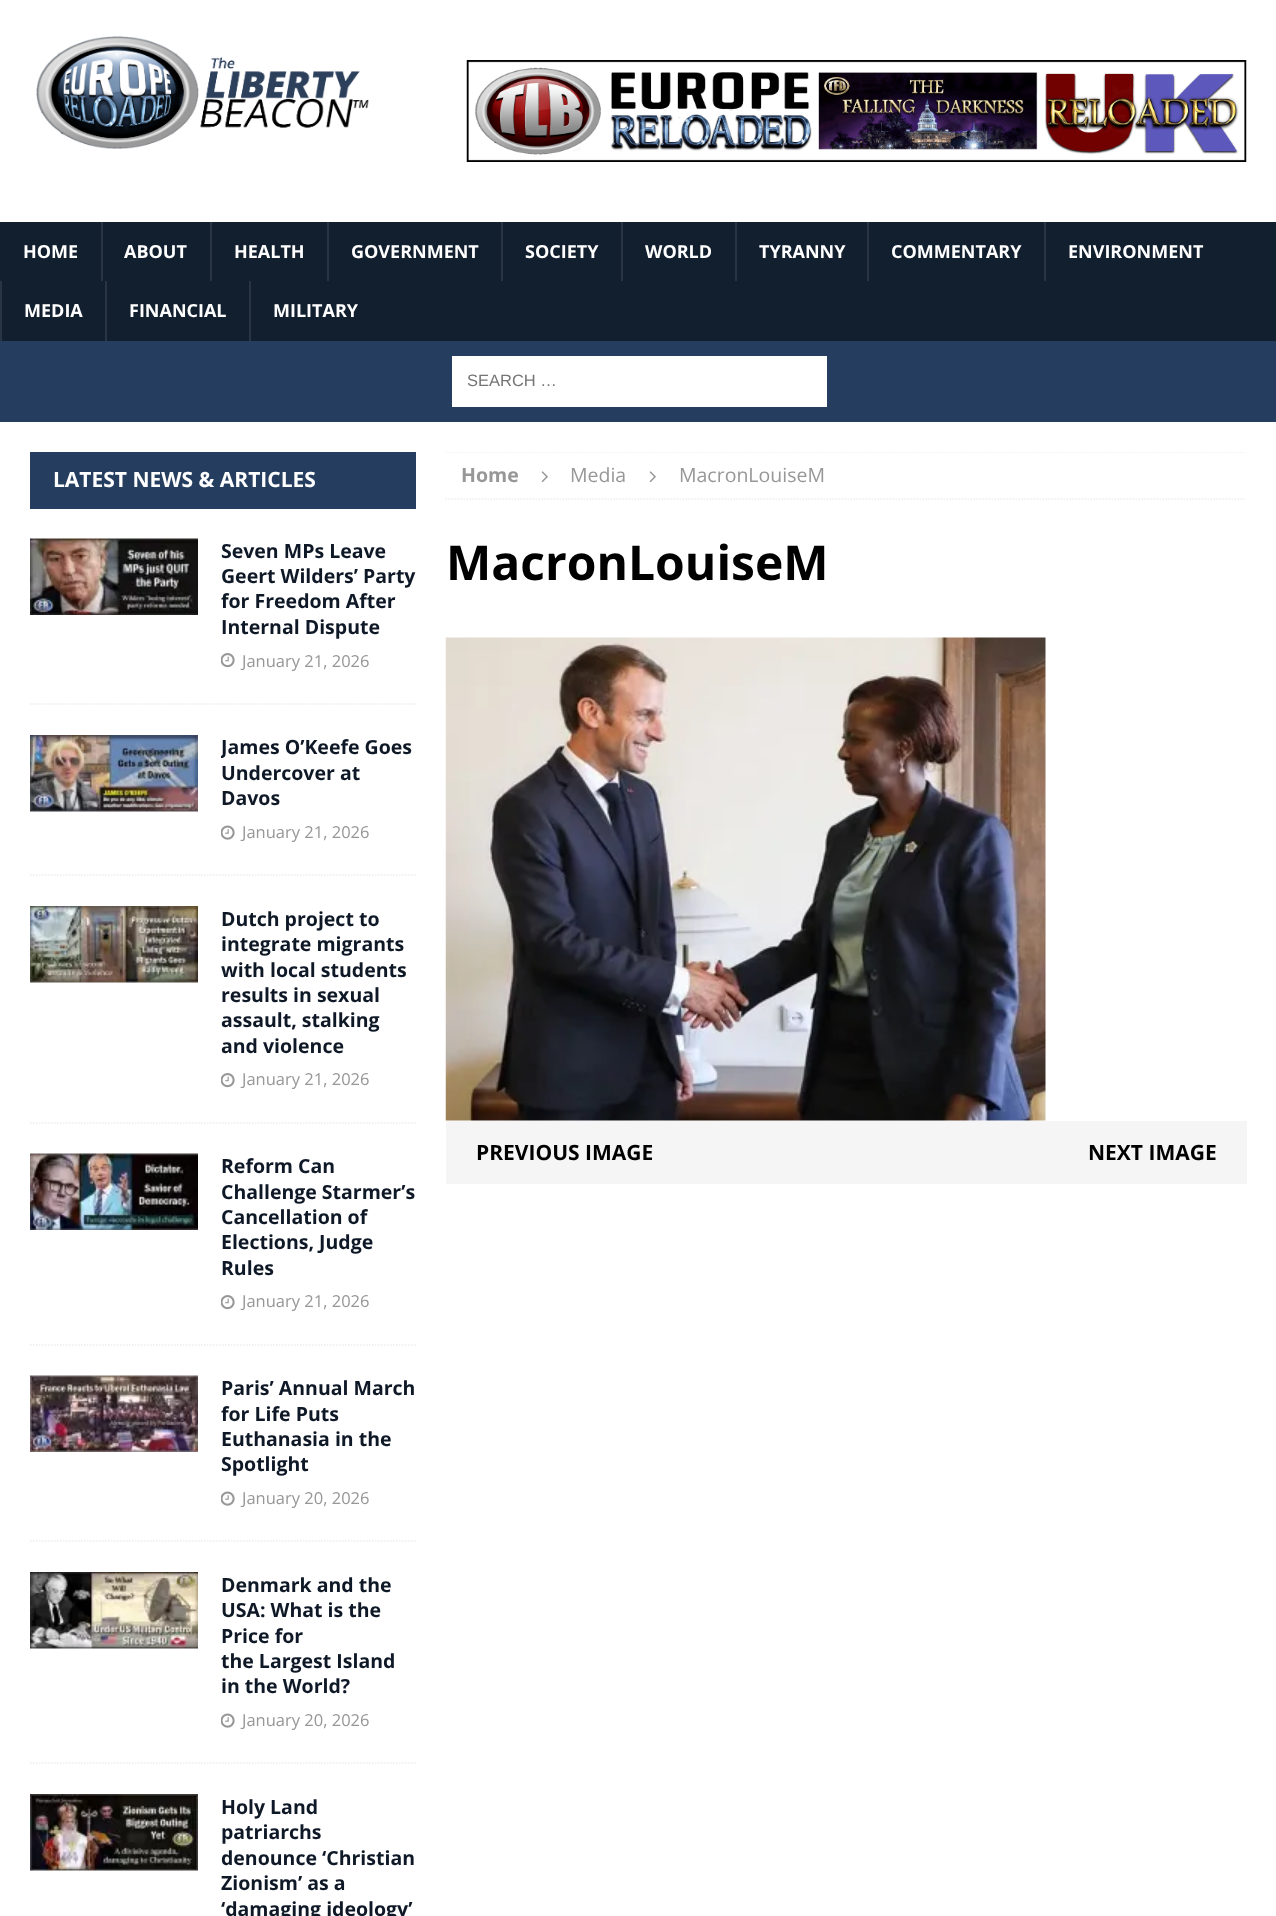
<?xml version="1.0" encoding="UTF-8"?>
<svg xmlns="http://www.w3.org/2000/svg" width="1276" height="1916">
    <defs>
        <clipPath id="clip1"><rect x="221" y="735" width="195" height="110"/></clipPath>
        <clipPath id="clip2"><rect x="446" y="452" width="801" height="762"/></clipPath>
    </defs>
    <rect width="100%" height="100%" fill="#FFFFFF"/>
    <image x="36" y="36" width="333" height="113" href="img_01.png"/>
    <image x="466" y="60" width="781" height="102" href="img_02.png"/>
    <rect x="0" y="222" width="1276" height="119" fill="#121F2F"/>
    <text x="23" y="258" font-family="Open Sans" font-size="18" font-weight="700" fill="#FFFFFF">HOME</text>
    <rect x="101" y="222" width="2" height="59" fill="#2A3544"/>
    <text x="124" y="258" font-family="Open Sans" font-size="18" font-weight="700" fill="#FFFFFF">ABOUT</text>
    <rect x="210" y="222" width="2" height="59" fill="#2A3544"/>
    <text x="234" y="258" font-family="Open Sans" font-size="18" font-weight="700" fill="#FFFFFF">HEALTH</text>
    <rect x="327" y="222" width="2" height="59" fill="#2A3544"/>
    <text x="351" y="258" font-family="Open Sans" font-size="18" font-weight="700" fill="#FFFFFF">GOVERNMENT</text>
    <rect x="501" y="222" width="2" height="59" fill="#2A3544"/>
    <text x="525" y="258" font-family="Open Sans" font-size="18" font-weight="700" fill="#FFFFFF">SOCIETY</text>
    <rect x="621" y="222" width="2" height="59" fill="#2A3544"/>
    <text x="645" y="258" font-family="Open Sans" font-size="18" font-weight="700" fill="#FFFFFF">WORLD</text>
    <rect x="735" y="222" width="2" height="59" fill="#2A3544"/>
    <text x="759" y="258" font-family="Open Sans" font-size="18" font-weight="700" fill="#FFFFFF">TYRANNY</text>
    <rect x="867" y="222" width="2" height="59" fill="#2A3544"/>
    <text x="891" y="258" font-family="Open Sans" font-size="18" font-weight="700" fill="#FFFFFF">COMMENTARY</text>
    <rect x="1044" y="222" width="2" height="59" fill="#2A3544"/>
    <text x="1068" y="258" font-family="Open Sans" font-size="18" font-weight="700" fill="#FFFFFF">ENVIRONMENT</text>
    <rect x="0" y="281" width="2" height="60" fill="#2A3544"/>
    <text x="24" y="317" font-family="Open Sans" font-size="18" font-weight="700" fill="#FFFFFF">MEDIA</text>
    <rect x="105" y="281" width="2" height="60" fill="#2A3544"/>
    <text x="129" y="317" font-family="Open Sans" font-size="18" font-weight="700" fill="#FFFFFF">FINANCIAL</text>
    <rect x="249" y="281" width="2" height="60" fill="#2A3544"/>
    <text x="273" y="317" font-family="Open Sans" font-size="18" font-weight="700" fill="#FFFFFF">MILITARY</text>
    <rect x="0" y="341" width="1276" height="81" fill="#253E5F"/>
    <rect x="452" y="356" width="375" height="51" fill="#FFFFFF"/>
    <text x="467" y="386" font-family="Liberation Sans" font-size="16.5" fill="#757575">SEARCH …</text>
    <rect x="30" y="452" width="386" height="57" fill="#253E5F"/>
    <text x="53" y="487" font-family="Open Sans" font-size="21" font-weight="700" fill="#FFFFFF">LATEST NEWS &amp; ARTICLES</text>
    <path d="M 30 704 H 415.5" fill="none" stroke="#EBEBEB" stroke-width="1.5" stroke-dasharray="1.5 1.5"/>
    <image x="30" y="538" width="168" height="77" href="img_03.png"/>
    <text font-family="Open Sans" font-size="19.5" font-weight="700" fill="#0E1826">
        <tspan x="221" y="558">Seven MPs Leave</tspan>
        <tspan x="221" y="583">Geert Wilders’ Party</tspan>
        <tspan x="221" y="608">for Freedom After</tspan>
        <tspan x="221" y="634">Internal Dispute</tspan>
    </text>
    <image x="221" y="653" width="14" height="15" href="img_04.png"/>
    <text x="242" y="667" font-family="Open Sans" font-size="16.5" fill="#979797">January 21, 2026</text>
    <path d="M 30 875 H 415.5" fill="none" stroke="#EBEBEB" stroke-width="1.5" stroke-dasharray="1.5 1.5"/>
    <image x="30" y="735" width="168" height="77" href="img_05.png"/>
    <g clip-path="url(#clip1)">
        <text x="221" y="754" font-family="Open Sans" font-size="19.5" font-weight="700" fill="#0E1826">James O’Keefe Goes</text>
    </g>
    <text font-family="Open Sans" font-size="19.5" font-weight="700" fill="#0E1826">
        <tspan x="221" y="780">Undercover at</tspan>
        <tspan x="221" y="805">Davos</tspan>
    </text>
    <image x="221" y="825" width="14" height="15" href="img_06.png"/>
    <text x="242" y="838" font-family="Open Sans" font-size="16.5" fill="#979797">January 21, 2026</text>
    <path d="M 30 1123 H 415.5" fill="none" stroke="#EBEBEB" stroke-width="1.5" stroke-dasharray="1.5 1.5"/>
    <image x="30" y="906" width="168" height="77" href="img_07.png"/>
    <text font-family="Open Sans" font-size="19.5" font-weight="700" fill="#0E1826">
        <tspan x="221" y="926">Dutch project to</tspan>
        <tspan x="221" y="951">integrate migrants</tspan>
        <tspan x="221" y="977">with local students</tspan>
        <tspan x="221" y="1002">results in sexual</tspan>
        <tspan x="221" y="1027">assault, stalking</tspan>
        <tspan x="221" y="1053">and violence</tspan>
    </text>
    <image x="221" y="1073" width="14" height="15" href="img_04.png"/>
    <text x="242" y="1085" font-family="Open Sans" font-size="16.5" fill="#979797">January 21, 2026</text>
    <path d="M 30 1345 H 415.5" fill="none" stroke="#EBEBEB" stroke-width="1.5" stroke-dasharray="1.5 1.5"/>
    <image x="30" y="1153" width="168" height="77" href="img_08.png"/>
    <text font-family="Open Sans" font-size="19.5" font-weight="700" fill="#0E1826">
        <tspan x="221" y="1173">Reform Can</tspan>
        <tspan x="221" y="1199">Challenge Starmer’s</tspan>
        <tspan x="221" y="1224">Cancellation of</tspan>
        <tspan x="221" y="1249">Elections, Judge</tspan>
        <tspan x="221" y="1275">Rules</tspan>
    </text>
    <image x="221" y="1295" width="14" height="15" href="img_04.png"/>
    <text x="242" y="1307" font-family="Open Sans" font-size="16.5" fill="#979797">January 21, 2026</text>
    <path d="M 30 1541 H 415.5" fill="none" stroke="#EBEBEB" stroke-width="1.5" stroke-dasharray="1.5 1.5"/>
    <image x="30" y="1375" width="168" height="77" href="img_09.png"/>
    <text font-family="Open Sans" font-size="19.5" font-weight="700" fill="#0E1826">
        <tspan x="221" y="1395">Paris’ Annual March</tspan>
        <tspan x="221" y="1421">for Life Puts</tspan>
        <tspan x="221" y="1446">Euthanasia in the</tspan>
        <tspan x="221" y="1471">Spotlight</tspan>
    </text>
    <image x="221" y="1491" width="14" height="15" href="img_06.png"/>
    <text x="242" y="1504" font-family="Open Sans" font-size="16.5" fill="#979797">January 20, 2026</text>
    <path d="M 30 1763 H 415.5" fill="none" stroke="#EBEBEB" stroke-width="1.5" stroke-dasharray="1.5 1.5"/>
    <image x="30" y="1572" width="168" height="77" href="img_10.png"/>
    <text font-family="Open Sans" font-size="19.5" font-weight="700" fill="#0E1826">
        <tspan x="221" y="1592">Denmark and the</tspan>
        <tspan x="221" y="1617">USA: What is the</tspan>
        <tspan x="221" y="1643">Price for</tspan>
        <tspan x="221" y="1668">the Largest Island</tspan>
        <tspan x="221" y="1693">in the World?</tspan>
    </text>
    <image x="221" y="1713" width="14" height="15" href="img_06.png"/>
    <text x="242" y="1726" font-family="Open Sans" font-size="16.5" fill="#979797">January 20, 2026</text>
    <image x="30" y="1794" width="168" height="77" href="img_11.png"/>
    <text font-family="Open Sans" font-size="19.5" font-weight="700" fill="#0E1826">
        <tspan x="221" y="1814">Holy Land</tspan>
        <tspan x="221" y="1839">patriarchs</tspan>
        <tspan x="221" y="1865">denounce ‘Christian</tspan>
        <tspan x="221" y="1890">Zionism’ as a</tspan>
        <tspan x="221" y="1916">‘damaging ideology’</tspan>
    </text>
    <g clip-path="url(#clip2)">
        <path d="M 445.5 452 H 1246.5" fill="none" stroke="#EBEBEB" stroke-width="1.5" stroke-dasharray="1.5 1.5"/>
    </g>
    <path d="M 445.5 499 H 1246.5" fill="none" stroke="#EBEBEB" stroke-width="1.5" stroke-dasharray="1.5 1.5"/>
    <text x="461" y="482" font-family="Open Sans" font-size="19.5" font-weight="700" fill="#979797">Home</text>
    <image x="541" y="471" width="7" height="12" href="img_12.png"/>
    <text x="570" y="482" font-family="Open Sans" font-size="19.5" fill="#979797">Media</text>
    <image x="649" y="471" width="7" height="12" href="img_12.png"/>
    <text x="679" y="482" font-family="Open Sans" font-size="19.5" fill="#979797">MacronLouiseM</text>
    <text x="446" y="580" font-family="Open Sans" font-size="48" font-weight="700" fill="#000000">MacronLouiseM</text>
    <image x="445" y="637" width="601" height="484" href="img_13.png"/>
    <rect x="446" y="1121" width="801" height="63" fill="#F5F5F5"/>
    <text x="476" y="1160" font-family="Open Sans" font-size="21" font-weight="700" fill="#000000">PREVIOUS IMAGE</text>
    <text x="1088" y="1160" font-family="Open Sans" font-size="21" font-weight="700" fill="#000000">NEXT IMAGE</text>
</svg>
